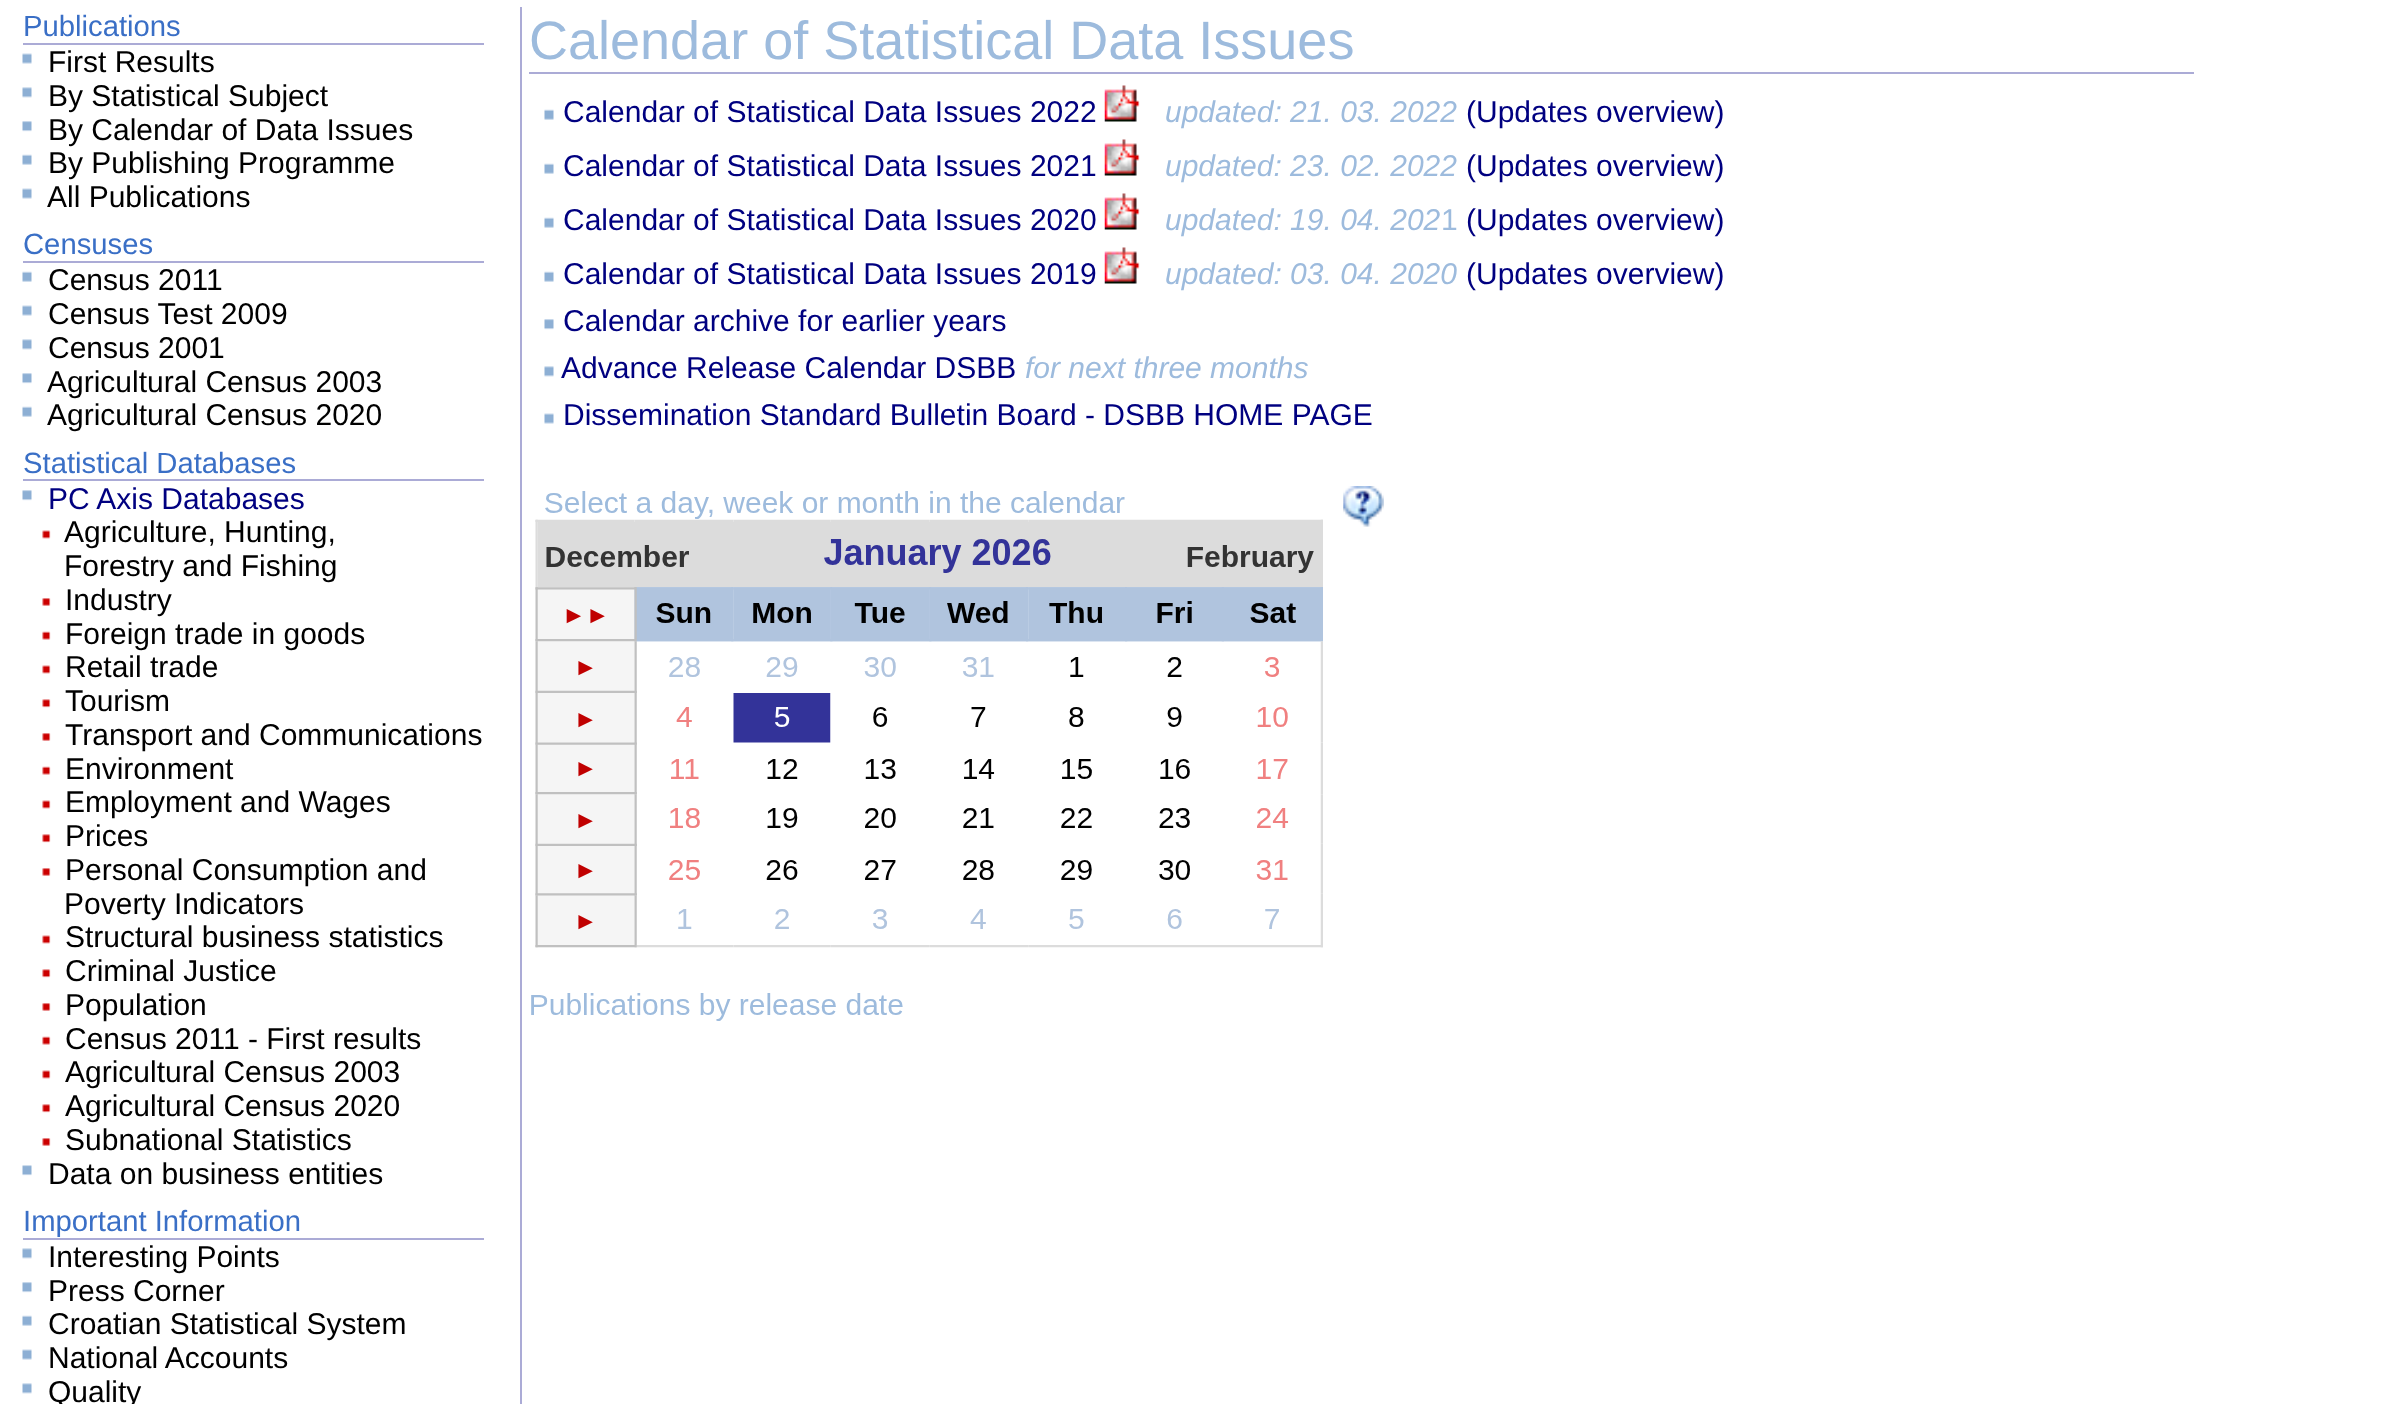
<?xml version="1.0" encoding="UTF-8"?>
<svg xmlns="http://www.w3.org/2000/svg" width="2385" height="1404">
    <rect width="100%" height="100%" fill="#FFFFFF"/>
    <rect x="520" y="7" width="2" height="1397" fill="#ABABD6"/>
    <text x="23" y="36" font-family="Liberation Sans" font-size="29.25" fill="#3A6FC6">Publications</text>
    <rect x="23" y="43" width="461" height="2" fill="#ABABD6"/>
    <image x="22" y="53" width="10" height="11" href="img_01.png"/>
    <text x="48" y="72" font-family="Liberation Sans" font-size="30" fill="#000000">First Results</text>
    <image x="22" y="87" width="10" height="11" href="img_02.png"/>
    <text x="48" y="106" font-family="Liberation Sans" font-size="30" fill="#000000">By Statistical Subject</text>
    <image x="22" y="121" width="10" height="11" href="img_03.png"/>
    <text x="48" y="140" font-family="Liberation Sans" font-size="30" fill="#000000">By Calendar of Data Issues</text>
    <image x="22" y="154" width="10" height="11" href="img_04.png"/>
    <text x="48" y="173" font-family="Liberation Sans" font-size="30" fill="#000000">By Publishing Programme</text>
    <image x="22" y="188" width="10" height="11" href="img_01.png"/>
    <text x="47" y="207" font-family="Liberation Sans" font-size="30" fill="#000000">All Publications</text>
    <text x="23" y="254" font-family="Liberation Sans" font-size="29.25" fill="#3A6FC6">Censuses</text>
    <rect x="23" y="261" width="461" height="2" fill="#ABABD6"/>
    <image x="22" y="271" width="10" height="11" href="img_04.png"/>
    <text x="48" y="290" font-family="Liberation Sans" font-size="30" fill="#000000">Census 2011</text>
    <image x="22" y="305" width="10" height="11" href="img_01.png"/>
    <text x="48" y="324" font-family="Liberation Sans" font-size="30" fill="#000000">Census Test 2009</text>
    <image x="22" y="339" width="10" height="11" href="img_02.png"/>
    <text x="48" y="358" font-family="Liberation Sans" font-size="30" fill="#000000">Census 2001</text>
    <image x="22" y="373" width="10" height="11" href="img_03.png"/>
    <text x="47" y="392" font-family="Liberation Sans" font-size="30" fill="#000000">Agricultural Census 2003</text>
    <image x="22" y="406" width="10" height="11" href="img_04.png"/>
    <text x="47" y="425" font-family="Liberation Sans" font-size="30" fill="#000000">Agricultural Census 2020</text>
    <text x="23" y="473" font-family="Liberation Sans" font-size="29.25" fill="#3A6FC6">Statistical Databases</text>
    <rect x="23" y="479" width="461" height="2" fill="#ABABD6"/>
    <image x="22" y="490" width="10" height="11" href="img_03.png"/>
    <text x="48" y="509" font-family="Liberation Sans" font-size="30" fill="#000080">PC Axis Databases</text>
    <image x="42" y="530" width="9" height="9" href="img_05.png"/>
    <text font-family="Liberation Sans" font-size="30" fill="#000000">
        <tspan x="64" y="542">Agriculture, Hunting,</tspan>
        <tspan x="64" y="576">Forestry and Fishing</tspan>
    </text>
    <image x="42" y="598" width="9" height="8" href="img_06.png"/>
    <text x="65" y="610" font-family="Liberation Sans" font-size="30" fill="#000000">Industry</text>
    <image x="42" y="631" width="9" height="9" href="img_07.png"/>
    <text x="65" y="644" font-family="Liberation Sans" font-size="30" fill="#000000">Foreign trade in goods</text>
    <image x="42" y="665" width="9" height="9" href="img_05.png"/>
    <text x="65" y="677" font-family="Liberation Sans" font-size="30" fill="#000000">Retail trade</text>
    <image x="42" y="699" width="9" height="9" href="img_08.png"/>
    <text x="65" y="711" font-family="Liberation Sans" font-size="30" fill="#000000">Tourism</text>
    <image x="42" y="733" width="9" height="8" href="img_06.png"/>
    <text x="65" y="745" font-family="Liberation Sans" font-size="30" fill="#000000">Transport and Communications</text>
    <image x="42" y="766" width="9" height="9" href="img_07.png"/>
    <text x="65" y="779" font-family="Liberation Sans" font-size="30" fill="#000000">Environment</text>
    <image x="42" y="800" width="9" height="9" href="img_05.png"/>
    <text x="65" y="812" font-family="Liberation Sans" font-size="30" fill="#000000">Employment and Wages</text>
    <image x="42" y="834" width="9" height="9" href="img_09.png"/>
    <text x="65" y="846" font-family="Liberation Sans" font-size="30" fill="#000000">Prices</text>
    <image x="42" y="868" width="9" height="8" href="img_06.png"/>
    <text x="65" y="880" font-family="Liberation Sans" font-size="30" fill="#000000">Personal Consumption and</text>
    <text x="64" y="914" font-family="Liberation Sans" font-size="30" fill="#000000">Poverty Indicators</text>
    <image x="42" y="935" width="9" height="9" href="img_05.png"/>
    <text x="65" y="947" font-family="Liberation Sans" font-size="30" fill="#000000">Structural business statistics</text>
    <image x="42" y="969" width="9" height="9" href="img_08.png"/>
    <text x="65" y="981" font-family="Liberation Sans" font-size="30" fill="#000000">Criminal Justice</text>
    <image x="42" y="1003" width="9" height="8" href="img_06.png"/>
    <text x="65" y="1015" font-family="Liberation Sans" font-size="30" fill="#000000">Population</text>
    <image x="42" y="1036" width="9" height="9" href="img_07.png"/>
    <text x="65" y="1049" font-family="Liberation Sans" font-size="30" fill="#000000">Census 2011 - First results</text>
    <image x="42" y="1070" width="9" height="9" href="img_05.png"/>
    <text x="65" y="1082" font-family="Liberation Sans" font-size="30" fill="#000000">Agricultural Census 2003</text>
    <image x="42" y="1104" width="9" height="9" href="img_08.png"/>
    <text x="65" y="1116" font-family="Liberation Sans" font-size="30" fill="#000000">Agricultural Census 2020</text>
    <image x="42" y="1138" width="9" height="8" href="img_06.png"/>
    <text x="65" y="1150" font-family="Liberation Sans" font-size="30" fill="#000000">Subnational Statistics</text>
    <image x="22" y="1165" width="10" height="11" href="img_10.png"/>
    <text x="48" y="1184" font-family="Liberation Sans" font-size="30" fill="#000000">Data on business entities</text>
    <text x="23" y="1231" font-family="Liberation Sans" font-size="29.25" fill="#3A6FC6">Important Information</text>
    <rect x="23" y="1238" width="461" height="2" fill="#ABABD6"/>
    <image x="22" y="1248" width="10" height="11" href="img_02.png"/>
    <text x="48" y="1267" font-family="Liberation Sans" font-size="30" fill="#000000">Interesting Points</text>
    <image x="22" y="1282" width="10" height="11" href="img_03.png"/>
    <text x="48" y="1301" font-family="Liberation Sans" font-size="30" fill="#000000">Press Corner</text>
    <image x="22" y="1315" width="10" height="11" href="img_04.png"/>
    <text x="48" y="1334" font-family="Liberation Sans" font-size="30" fill="#000000">Croatian Statistical System</text>
    <image x="22" y="1349" width="10" height="11" href="img_01.png"/>
    <text x="48" y="1368" font-family="Liberation Sans" font-size="30" fill="#000000">National Accounts</text>
    <image x="22" y="1383" width="10" height="11" href="img_02.png"/>
    <text x="48" y="1402" font-family="Liberation Sans" font-size="30" fill="#000000">Quality</text>
    <text x="529" y="59" font-family="Liberation Sans" font-size="54" fill="#9DBBDD">Calendar of Statistical Data Issues</text>
    <rect x="529" y="72" width="1665" height="2" fill="#ABABD6"/>
    <image x="544" y="109" width="10" height="11" href="img_04.png"/>
    <text x="563" y="122" font-family="Liberation Sans" font-size="30" fill="#000080">Calendar of Statistical Data Issues 2022</text>
    <image x="1104" y="85" width="36" height="37" href="img_11.png"/>
    <text x="1165" y="122" font-family="Liberation Sans" font-size="30" font-style="italic" fill="#9DBBDD">updated: 21. 03. 2022</text>
    <text x="1466" y="122" font-family="Liberation Sans" font-size="30" fill="#000080">(Updates overview)</text>
    <image x="544" y="163" width="10" height="11" href="img_04.png"/>
    <text x="563" y="176" font-family="Liberation Sans" font-size="30" fill="#000080">Calendar of Statistical Data Issues 2021</text>
    <image x="1104" y="139" width="36" height="37" href="img_11.png"/>
    <text x="1165" y="176" font-family="Liberation Sans" font-size="30" font-style="italic" fill="#9DBBDD">updated: 23. 02. 2022</text>
    <text x="1466" y="176" font-family="Liberation Sans" font-size="30" fill="#000080">(Updates overview)</text>
    <image x="544" y="217" width="10" height="11" href="img_04.png"/>
    <text x="563" y="230" font-family="Liberation Sans" font-size="30" fill="#000080">Calendar of Statistical Data Issues 2020</text>
    <image x="1104" y="193" width="36" height="37" href="img_11.png"/>
    <text x="1165" y="230" font-family="Liberation Sans" font-size="30" font-style="italic" fill="#9DBBDD">updated: 19. 04. 202</text>
    <text x="1441" y="230" font-family="Liberation Sans" font-size="30" fill="#9DBBDD">1</text>
    <text x="1466" y="230" font-family="Liberation Sans" font-size="30" fill="#000080">(Updates overview)</text>
    <image x="544" y="271" width="10" height="11" href="img_04.png"/>
    <text x="563" y="284" font-family="Liberation Sans" font-size="30" fill="#000080">Calendar of Statistical Data Issues 2019</text>
    <image x="1104" y="247" width="36" height="37" href="img_11.png"/>
    <text x="1165" y="284" font-family="Liberation Sans" font-size="30" font-style="italic" fill="#9DBBDD">updated: 03. 04. 2020</text>
    <text x="1466" y="284" font-family="Liberation Sans" font-size="30" fill="#000080">(Updates overview)</text>
    <image x="544" y="319" width="10" height="11" href="img_03.png"/>
    <text x="563" y="331" font-family="Liberation Sans" font-size="30" fill="#000080">Calendar archive for earlier years</text>
    <image x="544" y="366" width="10" height="11" href="img_02.png"/>
    <text x="561" y="378" font-family="Liberation Sans" font-size="30" fill="#000080">Advance Release Calendar DSBB</text>
    <text x="1025" y="378" font-family="Liberation Sans" font-size="30" font-style="italic" fill="#9DBBDD">for next three months</text>
    <image x="544" y="413" width="10" height="11" href="img_01.png"/>
    <text x="563" y="425" font-family="Liberation Sans" font-size="30" fill="#000080">Dissemination Standard Bulletin Board - DSBB HOME PAGE</text>
    <image x="531" y="486" width="853" height="535" href="img_12.png"/>
</svg>
